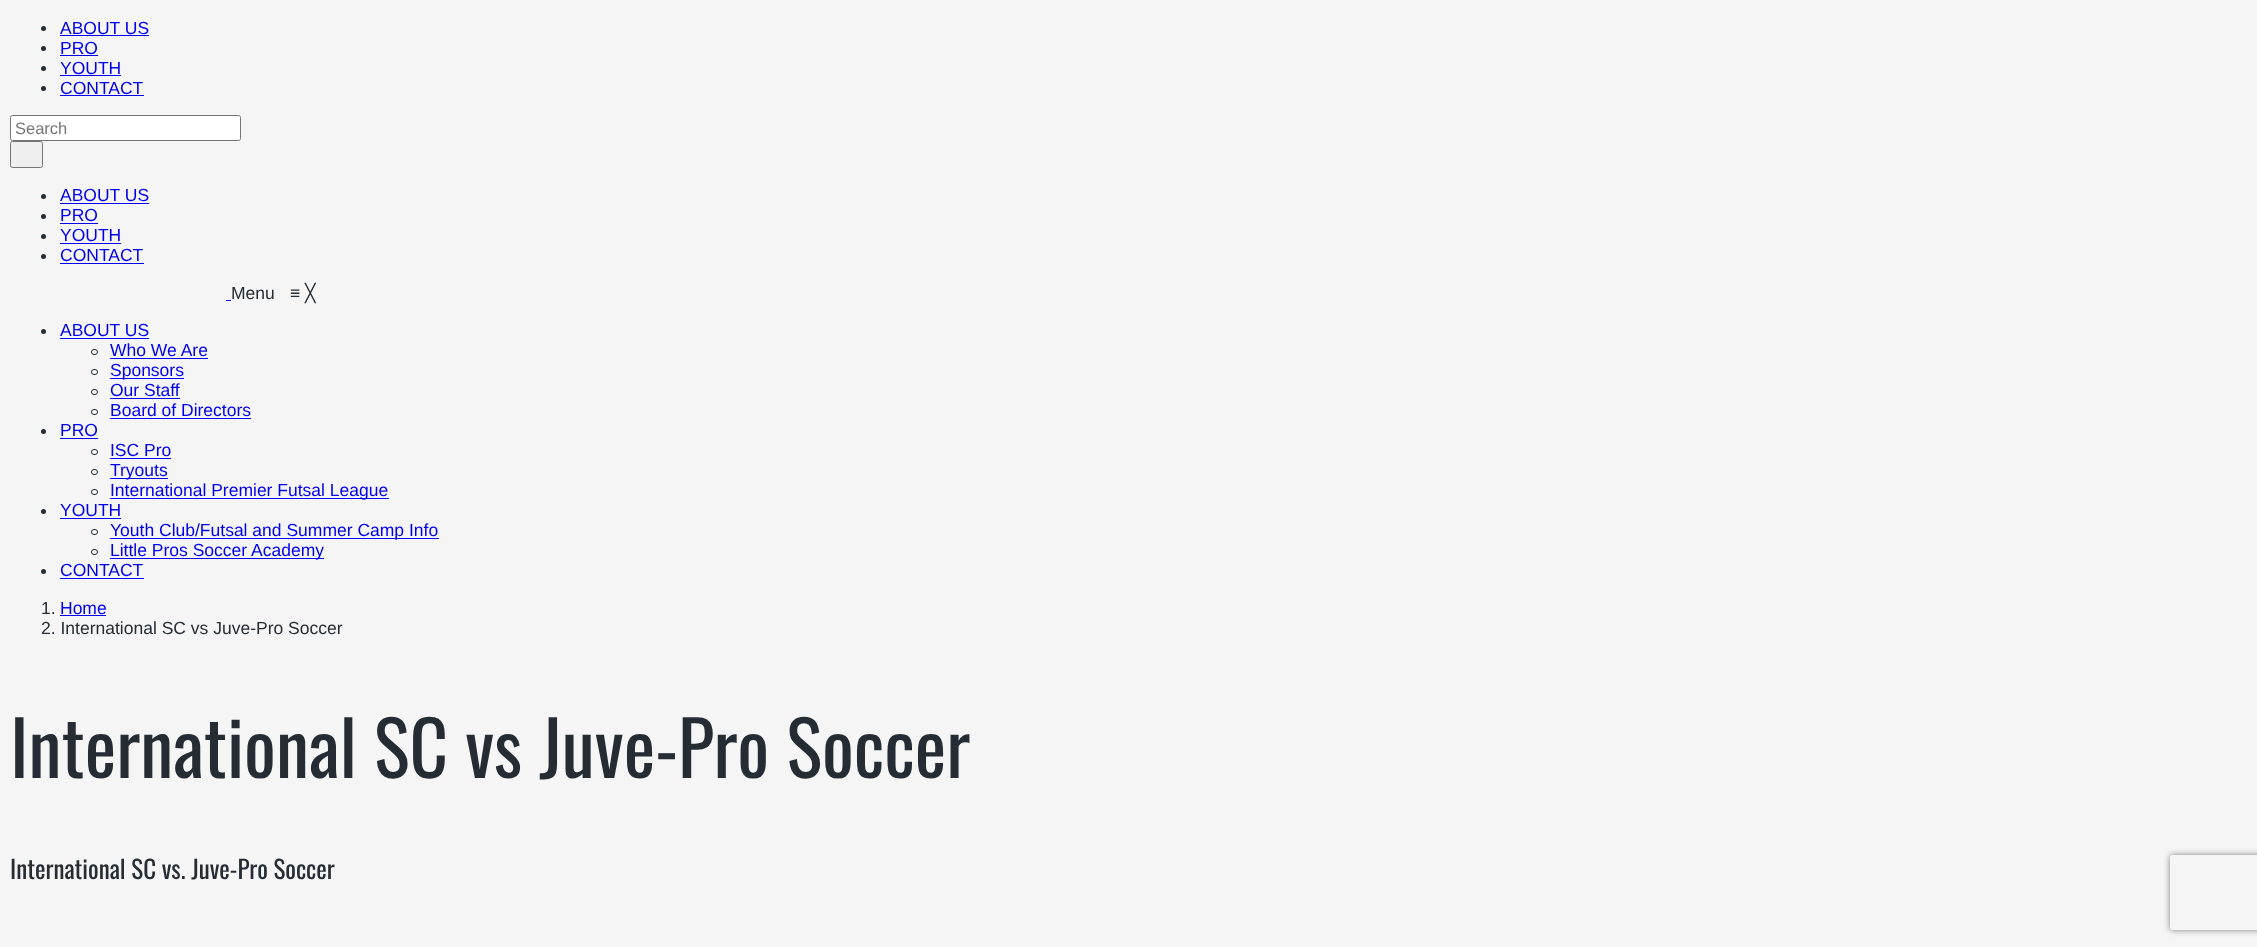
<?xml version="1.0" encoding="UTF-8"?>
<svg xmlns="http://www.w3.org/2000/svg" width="2257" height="947">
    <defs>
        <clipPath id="clip1"><path d="M 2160 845 H 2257 V 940 H 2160 Z M 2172.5 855 H 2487.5 C 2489 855 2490 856 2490 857.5 V 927.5 C 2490 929 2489 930 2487.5 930 H 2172.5 C 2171 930 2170 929 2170 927.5 V 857.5 C 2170 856 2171 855 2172.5 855 Z" clip-rule="evenodd"/></clipPath>
        <filter id="blur1" x="-50%" y="-200%" width="200%" height="500%"><feGaussianBlur stdDeviation="3"/></filter>
    </defs>
    <rect width="100%" height="100%" fill="#F5F5F5"/>
    <circle cx="43.5" cy="28.5" r="2.5" fill="#252C33"/>
    <text x="60" y="34" font-family="Liberation Sans" font-size="17.5" fill="#0000EE">ABOUT US</text>
    <rect x="60" y="35" width="89" height="1" fill="#0000EE"/>
    <circle cx="43.5" cy="48.5" r="2.5" fill="#252C33"/>
    <text x="60" y="54" font-family="Liberation Sans" font-size="17.5" fill="#0000EE">PRO</text>
    <rect x="60" y="55" width="38" height="1" fill="#0000EE"/>
    <circle cx="43.5" cy="68.5" r="2.5" fill="#252C33"/>
    <text x="60" y="74" font-family="Liberation Sans" font-size="17.5" fill="#0000EE">YOUTH</text>
    <rect x="60" y="75" width="61" height="1" fill="#0000EE"/>
    <circle cx="43.5" cy="88.5" r="2.5" fill="#252C33"/>
    <text x="60" y="94" font-family="Liberation Sans" font-size="17.5" fill="#0000EE">CONTACT</text>
    <rect x="60" y="95" width="84" height="1" fill="#0000EE"/>
    <rect x="10.5" y="115.5" width="230" height="25" rx="2" fill="#FFFFFF" stroke="#767676"/>
    <text x="15" y="134" font-family="Liberation Sans" font-size="16.5" fill="#757575">Search</text>
    <rect x="10.5" y="141.5" width="32" height="26" rx="2" fill="#EFEFEF" stroke="#767676"/>
    <circle cx="43.5" cy="196.5" r="2.5" fill="#252C33"/>
    <text x="60" y="201" font-family="Liberation Sans" font-size="17.5" fill="#0000EE">ABOUT US</text>
    <rect x="60" y="203" width="89" height="1" fill="#0000EE"/>
    <circle cx="43.5" cy="216.5" r="2.5" fill="#252C33"/>
    <text x="60" y="221" font-family="Liberation Sans" font-size="17.5" fill="#0000EE">PRO</text>
    <rect x="60" y="223" width="38" height="1" fill="#0000EE"/>
    <circle cx="43.5" cy="236.5" r="2.5" fill="#252C33"/>
    <text x="60" y="241" font-family="Liberation Sans" font-size="17.5" fill="#0000EE">YOUTH</text>
    <rect x="60" y="243" width="61" height="1" fill="#0000EE"/>
    <circle cx="43.5" cy="256.5" r="2.5" fill="#252C33"/>
    <text x="60" y="261" font-family="Liberation Sans" font-size="17.5" fill="#0000EE">CONTACT</text>
    <rect x="60" y="263" width="84" height="1" fill="#0000EE"/>
    <text x="231" y="299" font-family="Liberation Sans" font-size="17.5" fill="#252C33">Menu</text>
    <rect x="226" y="300" width="5" height="1" fill="#0000EE"/>
    <text x="290" y="299" font-family="Liberation Sans" font-size="17.5" fill="#252C33">≡</text>
    <text x="305" y="299" font-family="DejaVu Sans" font-size="17.5" fill="#252C33">╳</text>
    <circle cx="43.5" cy="331.5" r="2.5" fill="#252C33"/>
    <text x="60" y="336" font-family="Liberation Sans" font-size="17.5" fill="#0000EE">ABOUT US</text>
    <rect x="60" y="338" width="89" height="1" fill="#0000EE"/>
    <rect x="91.5" y="349.5" width="6" height="5" rx="2.5" fill="none" stroke="#252C33"/>
    <text x="110" y="356" font-family="Liberation Sans" font-size="17.5" fill="#0000EE">Who We Are</text>
    <rect x="110" y="358" width="98" height="1" fill="#0000EE"/>
    <rect x="91.5" y="369.5" width="6" height="5" rx="2.5" fill="none" stroke="#252C33"/>
    <rect x="110" y="378" width="74" height="1" fill="#0000EE"/>
    <text x="110" y="376" font-family="Liberation Sans" font-size="17.5" fill="#0000EE">Sponsors</text>
    <rect x="91.5" y="389.5" width="6" height="5" rx="2.5" fill="none" stroke="#252C33"/>
    <text x="110" y="396" font-family="Liberation Sans" font-size="17.5" fill="#0000EE">Our Staff</text>
    <rect x="110" y="398" width="70" height="1" fill="#0000EE"/>
    <rect x="91.5" y="409.5" width="6" height="5" rx="2.5" fill="none" stroke="#252C33"/>
    <text x="110" y="416" font-family="Liberation Sans" font-size="17.5" fill="#0000EE">Board of Directors</text>
    <rect x="110" y="418" width="141" height="1" fill="#0000EE"/>
    <circle cx="43.5" cy="431.5" r="2.5" fill="#252C33"/>
    <text x="60" y="436" font-family="Liberation Sans" font-size="17.5" fill="#0000EE">PRO</text>
    <rect x="60" y="438" width="38" height="1" fill="#0000EE"/>
    <rect x="91.5" y="449.5" width="6" height="5" rx="2.5" fill="none" stroke="#252C33"/>
    <text x="110" y="456" font-family="Liberation Sans" font-size="17.5" fill="#0000EE">ISC Pro</text>
    <rect x="110" y="458" width="61" height="1" fill="#0000EE"/>
    <rect x="91.5" y="469.5" width="6" height="5" rx="2.5" fill="none" stroke="#252C33"/>
    <rect x="110" y="478" width="58" height="1" fill="#0000EE"/>
    <text x="110" y="476" font-family="Liberation Sans" font-size="17.5" fill="#0000EE">Tryouts</text>
    <rect x="91.5" y="489.5" width="6" height="5" rx="2.5" fill="none" stroke="#252C33"/>
    <rect x="110" y="498" width="279" height="1" fill="#0000EE"/>
    <text x="110" y="496" font-family="Liberation Sans" font-size="17.5" fill="#0000EE">International Premier Futsal League</text>
    <circle cx="43.5" cy="511.5" r="2.5" fill="#252C33"/>
    <text x="60" y="516" font-family="Liberation Sans" font-size="17.5" fill="#0000EE">YOUTH</text>
    <rect x="60" y="518" width="61" height="1" fill="#0000EE"/>
    <rect x="91.5" y="529.5" width="6" height="5" rx="2.5" fill="none" stroke="#252C33"/>
    <rect x="110" y="538" width="329" height="1" fill="#0000EE"/>
    <text x="110" y="536" font-family="Liberation Sans" font-size="17.5" fill="#0000EE">Youth Club/Futsal and Summer Camp Info</text>
    <rect x="91.5" y="549.5" width="6" height="5" rx="2.5" fill="none" stroke="#252C33"/>
    <rect x="110" y="558" width="214" height="1" fill="#0000EE"/>
    <text x="110" y="556" font-family="Liberation Sans" font-size="17.5" fill="#0000EE">Little Pros Soccer Academy</text>
    <circle cx="43.5" cy="571.5" r="2.5" fill="#252C33"/>
    <text x="60" y="576" font-family="Liberation Sans" font-size="17.5" fill="#0000EE">CONTACT</text>
    <rect x="60" y="578" width="84" height="1" fill="#0000EE"/>
    <text x="41" y="614" font-family="Liberation Sans" font-size="17.5" fill="#252C33">1.</text>
    <text x="60" y="614" font-family="Liberation Sans" font-size="17.5" fill="#0000EE">Home</text>
    <rect x="60" y="615" width="46" height="1" fill="#0000EE"/>
    <text x="41" y="634" font-family="Liberation Sans" font-size="17.5" fill="#252C33">2. International SC vs Juve-Pro Soccer</text>
    <text x="10" y="778" font-family="Oswald" font-size="75" fill="#252C33">International SC vs Juve-Pro Soccer</text>
    <text x="10" y="879" font-family="Oswald" font-size="25" fill="#252C33">International SC vs. Juve-Pro Soccer</text>
    <g clip-path="url(#clip1)">
        <rect x="2170" y="855" width="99" height="75" rx="2.5" fill="#808080" filter="url(#blur1)"/>
    </g>
</svg>
